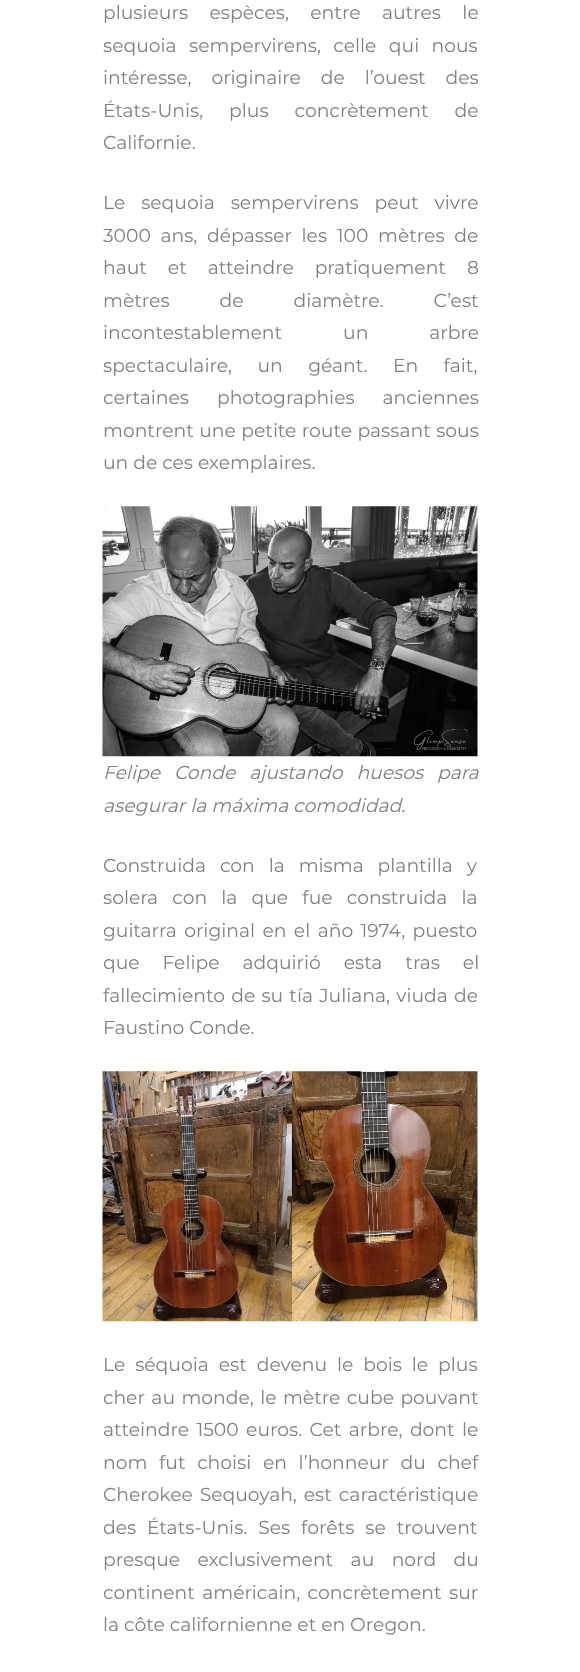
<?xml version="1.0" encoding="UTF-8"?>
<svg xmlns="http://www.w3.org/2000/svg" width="580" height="1672">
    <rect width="100%" height="100%" fill="#FFFFFF"/>
    <text font-family="Montserrat" font-size="18.75" fill="#818181">
        <tspan x="103" y="19" word-spacing="16.5">plusieurs espèces, entre autres le</tspan>
        <tspan x="103" y="52" word-spacing="7.5">sequoia sempervirens, celle qui nous</tspan>
        <tspan x="103" y="84" word-spacing="15">intéresse, originaire de l’ouest des</tspan>
        <tspan x="103" y="117" word-spacing="21">États-Unis, plus concrètement de</tspan>
        <tspan x="103" y="149">Californie.</tspan>
    </text>
    <text font-family="Montserrat" font-size="18.75" fill="#818181">
        <tspan x="103" y="209" word-spacing="11">Le sequoia sempervirens peut vivre</tspan>
        <tspan x="103" y="242" word-spacing="4.75">3000 ans, dépasser les 100 mètres de</tspan>
        <tspan x="103" y="274" word-spacing="16">haut et atteindre pratiquement 8</tspan>
        <tspan x="103" y="307" word-spacing="45">mètres de diamètre. C’est</tspan>
        <tspan x="103" y="339" word-spacing="56">incontestablement un arbre</tspan>
        <tspan x="103" y="372" word-spacing="20.5">spectaculaire, un géant. En fait,</tspan>
        <tspan x="103" y="404" word-spacing="23">certaines photographies anciennes</tspan>
        <tspan x="103" y="437" word-spacing="0.5">montrent une petite route passant sous</tspan>
        <tspan x="103" y="469">un de ces exemplaires.</tspan>
    </text>
    <image x="102" y="506" width="376" height="251" href="img_01.png"/>
    <text font-family="Montserrat" font-size="18.75" font-style="italic" fill="#818181">
        <tspan x="103" y="779" word-spacing="9">Felipe Conde ajustando huesos para</tspan>
        <tspan x="103" y="812">asegurar la máxima comodidad.</tspan>
    </text>
    <text font-family="Montserrat" font-size="18.75" fill="#818181">
        <tspan x="103" y="872" word-spacing="9">Construida con la misma plantilla y</tspan>
        <tspan x="103" y="904" word-spacing="9.25">solera con la que fue construida la</tspan>
        <tspan x="103" y="937" word-spacing="2.5">guitarra original en el año 1974, puesto</tspan>
        <tspan x="103" y="969" word-spacing="18">que Felipe adquirió esta tras el</tspan>
        <tspan x="103" y="1002" word-spacing="1.25">fallecimiento de su tía Juliana, viuda de</tspan>
        <tspan x="103" y="1034">Faustino Conde.</tspan>
    </text>
    <image x="102" y="1071" width="376" height="251" href="img_02.png"/>
    <text font-family="Montserrat" font-size="18.75" fill="#818181">
        <tspan x="103" y="1371" word-spacing="5">Le séquoia est devenu le bois le plus</tspan>
        <tspan x="103" y="1404" word-spacing="1.5">cher au monde, le mètre cube pouvant</tspan>
        <tspan x="103" y="1436" word-spacing="2.5">atteindre 1500 euros. Cet arbre, dont le</tspan>
        <tspan x="103" y="1469" word-spacing="6.75">nom fut choisi en l’honneur du chef</tspan>
        <tspan x="103" y="1501" word-spacing="2">Cherokee Sequoyah, est caractéristique</tspan>
        <tspan x="103" y="1534" word-spacing="6">des États-Unis. Ses forêts se trouvent</tspan>
        <tspan x="103" y="1566" word-spacing="12.5">presque exclusivement au nord du</tspan>
        <tspan x="103" y="1599" word-spacing="2.5">continent américain, concrètement sur</tspan>
        <tspan x="103" y="1631">la côte californienne et en Oregon.</tspan>
    </text>
</svg>
